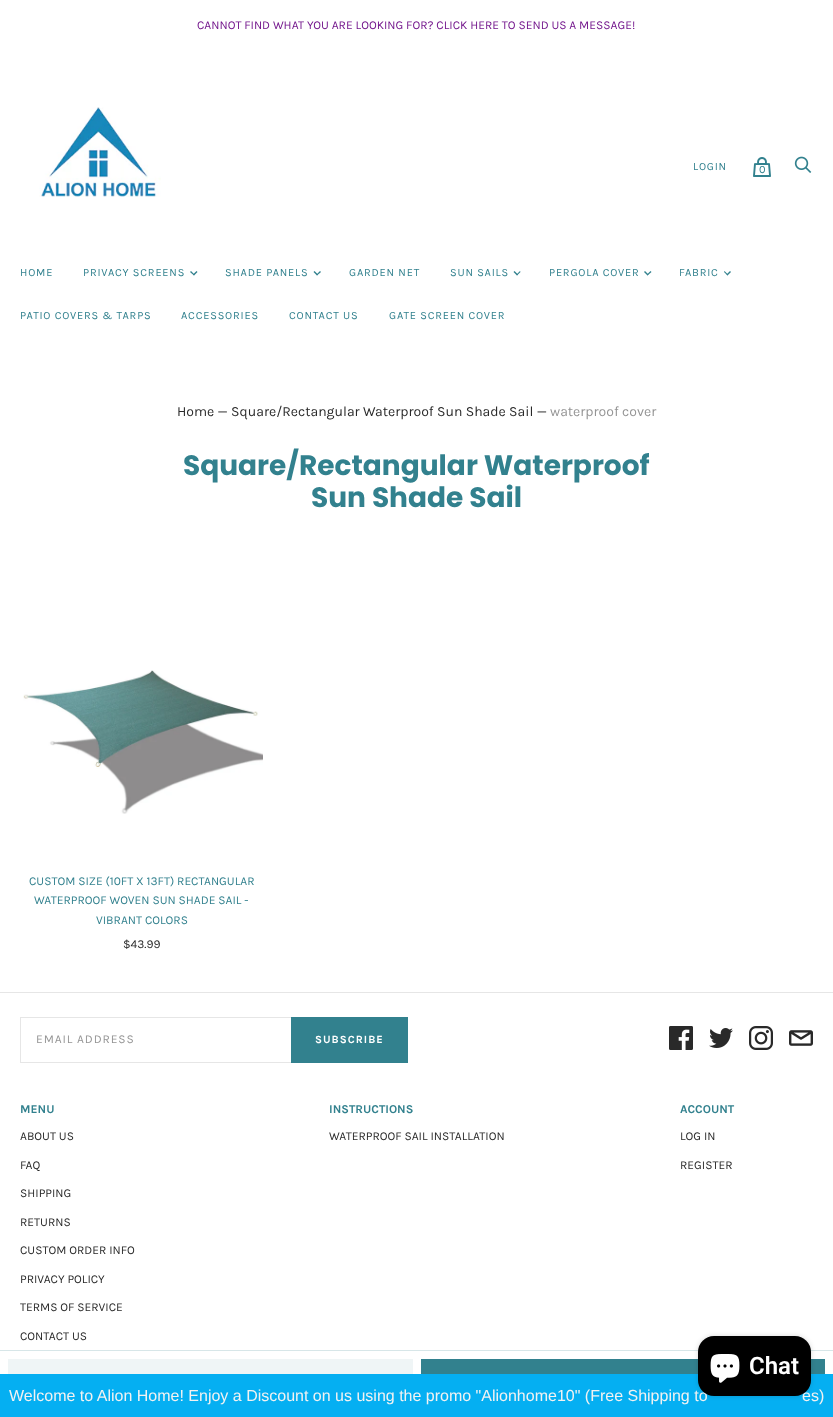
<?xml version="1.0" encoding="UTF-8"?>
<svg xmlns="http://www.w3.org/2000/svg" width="833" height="1417">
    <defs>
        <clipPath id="clip1"><rect x="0" y="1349" width="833" height="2"/></clipPath>
        <filter id="blur1" x="-50%" y="-200%" width="200%" height="500%"><feGaussianBlur stdDeviation="0.5"/></filter>
        <filter id="blur2" x="-50%" y="-200%" width="200%" height="500%"><feGaussianBlur stdDeviation="2.5"/></filter>
    </defs>
    <rect width="100%" height="100%" fill="#FFFFFF"/>
    <text x="197" y="29" font-family="Karla" font-size="12" fill="#73168C">CANNOT FIND WHAT YOU ARE LOOKING FOR? CLICK HERE TO SEND US A MESSAGE!</text>
    <image x="39" y="107" width="122" height="90" href="img_01.png"/>
    <text x="693" y="170" font-family="Karla" font-size="11" letter-spacing="0.8" fill="#32818E">LOGIN</text>
    <image x="753" y="157" width="18" height="20" href="img_02.png"/>
    <text x="759" y="173" font-family="Karla" font-size="11" fill="#32818E">0</text>
    <image x="794" y="156" width="18" height="17" href="img_03.png"/>
    <text x="20" y="276" font-family="Karla" font-size="11" letter-spacing="0.8" fill="#32818E">HOME</text>
    <text x="83" y="276" font-family="Karla" font-size="11" letter-spacing="0.8" fill="#32818E">PRIVACY SCREENS</text>
    <path d="M 193 274.5 L 196.5 271 L 197.5 272 L 194 275.5 Z" fill="#32818E"/>
    <path d="M 190 272 L 191 271 L 194.5 274.5 L 194 275.5 Z" fill="#32818E"/>
    <text x="225" y="276" font-family="Karla" font-size="11" letter-spacing="0.8" fill="#32818E">SHADE PANELS</text>
    <path d="M 316.5 274.5 L 320 271 L 321 272 L 317 275.5 Z" fill="#32818E"/>
    <path d="M 313.5 272 L 314.5 271 L 318 274.5 L 317 275.5 Z" fill="#32818E"/>
    <text x="349" y="276" font-family="Karla" font-size="11" letter-spacing="0.8" fill="#32818E">GARDEN NET</text>
    <text x="450" y="276" font-family="Karla" font-size="11" letter-spacing="0.8" fill="#32818E">SUN SAILS</text>
    <path d="M 516.5 274.5 L 520 271 L 520.5 272 L 517 275.5 Z" fill="#32818E"/>
    <path d="M 513.5 272 L 514.5 271 L 518 274.5 L 517 275.5 Z" fill="#32818E"/>
    <text x="549" y="276" font-family="Karla" font-size="11" letter-spacing="0.8" fill="#32818E">PERGOLA COVER</text>
    <path d="M 647 274.5 L 650.5 271 L 651.5 272 L 647.5 275.5 Z" fill="#32818E"/>
    <path d="M 644 272 L 645 271 L 648.5 274.5 L 647.5 275.5 Z" fill="#32818E"/>
    <text x="679" y="276" font-family="Karla" font-size="11" letter-spacing="0.8" fill="#32818E">FABRIC</text>
    <path d="M 726.5 274.5 L 730 271 L 731 272 L 727.5 275.5 Z" fill="#32818E"/>
    <path d="M 724 272 L 724.5 271 L 728 274.5 L 727.5 275.5 Z" fill="#32818E"/>
    <text x="20" y="319" font-family="Karla" font-size="11" letter-spacing="0.8" fill="#32818E">PATIO COVERS &amp; TARPS</text>
    <text x="181" y="319" font-family="Karla" font-size="11" letter-spacing="0.8" fill="#32818E">ACCESSORIES</text>
    <text x="289" y="319" font-family="Karla" font-size="11" letter-spacing="0.8" fill="#32818E">CONTACT US</text>
    <text x="389" y="319" font-family="Karla" font-size="11" letter-spacing="0.8" fill="#32818E">GATE SCREEN COVER</text>
    <text x="177" y="416" font-family="Karla" font-size="14" fill="#292929">Home — Square/Rectangular Waterproof Sun Shade Sail —</text>
    <text x="550" y="416" font-family="Karla" font-size="14" fill="#949494">waterproof cover</text>
    <text x="183" y="475" font-family="Poppins" font-size="28" font-weight="700" fill="#32818E">Square/Rectangular Waterproof</text>
    <text x="311" y="507" font-family="Poppins" font-size="28" font-weight="700" fill="#32818E">Sun Shade Sail</text>
    <image x="23" y="670" width="240" height="144" href="img_04.png"/>
    <text x="29" y="885" font-family="Karla" font-size="12" fill="#32818E">CUSTOM SIZE (10FT X 13FT) RECTANGULAR</text>
    <text x="34" y="904" font-family="Karla" font-size="12" fill="#32818E">WATERPROOF WOVEN SUN SHADE SAIL -</text>
    <text x="96" y="924" font-family="Karla" font-size="12" fill="#32818E">VIBRANT COLORS</text>
    <text x="123" y="948" font-family="Karla" font-size="12" fill="#292929">$43.99</text>
    <g clip-path="url(#clip1)">
        <rect x="0" y="1350" width="833" height="66" fill="#32818E" fill-opacity="0.2" filter="url(#blur1)"/>
    </g>
    <rect x="8" y="1359" width="405" height="15" fill="#EFF5F6"/>
    <rect x="421" y="1359" width="404" height="15" fill="#32818E"/>
    <rect x="0" y="992" width="833" height="1" fill="#E6E6E6"/>
    <rect x="20" y="1017" width="271" height="1" fill="#E6E6E6"/>
    <rect x="20" y="1062" width="271" height="1" fill="#E6E6E6"/>
    <rect x="20" y="1017" width="1" height="46" fill="#E6E6E6"/>
    <text x="36" y="1043" font-family="Karla" font-size="12" letter-spacing="0.9" fill="#949494">EMAIL ADDRESS</text>
    <rect x="291" y="1017" width="117" height="46" fill="#32818E"/>
    <text x="315" y="1043" font-family="Karla" font-size="11" font-weight="700" letter-spacing="1" fill="#FFFFFF">SUBSCRIBE</text>
    <image x="669" y="1026" width="24" height="24" href="img_05.png"/>
    <image x="709" y="1028" width="24" height="20" href="img_06.png"/>
    <image x="749" y="1026" width="24" height="24" href="img_07.png"/>
    <image x="789" y="1030" width="24" height="16" href="img_08.png"/>
    <text x="20" y="1113" font-family="Karla" font-size="12" font-weight="700" fill="#32818E">MENU</text>
    <text x="20" y="1140" font-family="Karla" font-size="12" fill="#292929">ABOUT US</text>
    <text x="20" y="1169" font-family="Karla" font-size="12" fill="#292929">FAQ</text>
    <text x="20" y="1197" font-family="Karla" font-size="12" fill="#292929">SHIPPING</text>
    <text x="20" y="1226" font-family="Karla" font-size="12" fill="#292929">RETURNS</text>
    <text x="20" y="1254" font-family="Karla" font-size="12" fill="#292929">CUSTOM ORDER INFO</text>
    <text x="20" y="1283" font-family="Karla" font-size="12" fill="#292929">PRIVACY POLICY</text>
    <text x="20" y="1311" font-family="Karla" font-size="12" fill="#292929">TERMS OF SERVICE</text>
    <text x="20" y="1340" font-family="Karla" font-size="12" fill="#292929">CONTACT US</text>
    <text x="329" y="1113" font-family="Karla" font-size="12" font-weight="700" fill="#32818E">INSTRUCTIONS</text>
    <text x="329" y="1140" font-family="Karla" font-size="12" fill="#292929">WATERPROOF SAIL INSTALLATION</text>
    <text x="680" y="1113" font-family="Karla" font-size="12" font-weight="700" fill="#32818E">ACCOUNT</text>
    <text x="680" y="1140" font-family="Karla" font-size="12" fill="#292929">LOG IN</text>
    <text x="680" y="1169" font-family="Karla" font-size="12" fill="#292929">REGISTER</text>
    <rect x="0" y="1374" width="833" height="43" fill="#05AFF2"/>
    <rect x="698" y="1336" width="113" height="60" rx="16" fill="#000000" fill-opacity="0.15" filter="url(#blur2)"/>
    <text x="9" y="1401" font-family="Liberation Sans" font-size="16" fill="#F2F2F2">Welcome to Alion Home! Enjoy a Discount on us using the promo "Alionhome10" (Free Shipping to</text>
    <text x="802" y="1401" font-family="Liberation Sans" font-size="16" fill="#F2F2F2">es)</text>
    <rect x="698" y="1336" width="113" height="60" rx="16" fill="#000000"/>
    <image x="710" y="1354" width="30" height="29" href="img_09.png"/>
    <text x="749" y="1374" font-family="Roboto" font-size="24" font-weight="600" fill="#FFFFFF">Chat</text>
</svg>
